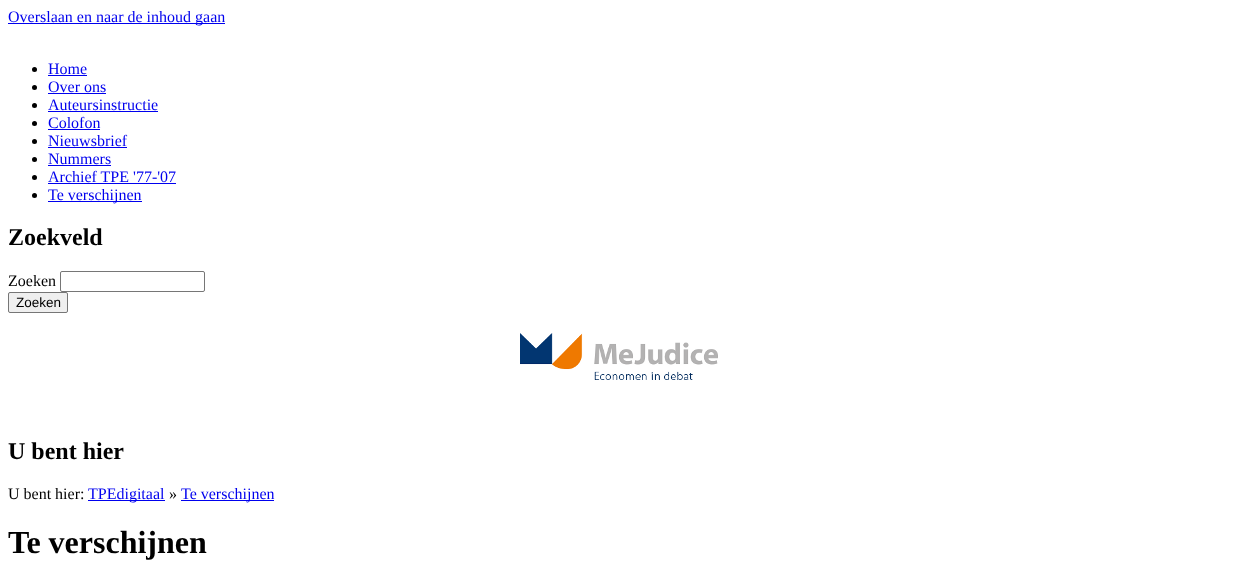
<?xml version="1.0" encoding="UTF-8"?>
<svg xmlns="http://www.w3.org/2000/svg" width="1239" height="566">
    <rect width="100%" height="100%" fill="#FFFFFF"/>
    <rect x="8" y="23" width="217" height="1" fill="#0000EE"/>
    <text x="8" y="22" font-family="Liberation Serif" font-size="16" fill="#0000EE">Overslaan en naar de inhoud gaan</text>
    <circle cx="34.5" cy="69.5" r="2.5" fill="#000000"/>
    <text x="48" y="74" font-family="Liberation Serif" font-size="16" fill="#0000EE">Home</text>
    <rect x="48" y="75" width="39" height="1" fill="#0000EE"/>
    <circle cx="34.5" cy="87.5" r="2.5" fill="#000000"/>
    <text x="48" y="92" font-family="Liberation Serif" font-size="16" fill="#0000EE">Over ons</text>
    <rect x="48" y="93" width="58" height="1" fill="#0000EE"/>
    <circle cx="34.5" cy="105.5" r="2.5" fill="#000000"/>
    <text x="48" y="110" font-family="Liberation Serif" font-size="16" fill="#0000EE">Auteursinstructie</text>
    <rect x="48" y="111" width="110" height="1" fill="#0000EE"/>
    <circle cx="34.5" cy="123.5" r="2.5" fill="#000000"/>
    <text x="48" y="128" font-family="Liberation Serif" font-size="16" fill="#0000EE">Colofon</text>
    <rect x="48" y="129" width="52" height="1" fill="#0000EE"/>
    <circle cx="34.5" cy="141.5" r="2.5" fill="#000000"/>
    <text x="48" y="146" font-family="Liberation Serif" font-size="16" fill="#0000EE">Nieuwsbrief</text>
    <rect x="48" y="147" width="79" height="1" fill="#0000EE"/>
    <circle cx="34.5" cy="159.5" r="2.5" fill="#000000"/>
    <text x="48" y="164" font-family="Liberation Serif" font-size="16" fill="#0000EE">Nummers</text>
    <rect x="48" y="165" width="63" height="1" fill="#0000EE"/>
    <circle cx="34.5" cy="177.5" r="2.5" fill="#000000"/>
    <text x="48" y="182" font-family="Liberation Serif" font-size="16" fill="#0000EE">Archief TPE '77-'07</text>
    <rect x="48" y="183" width="128" height="1" fill="#0000EE"/>
    <circle cx="34.5" cy="195.5" r="2.5" fill="#000000"/>
    <rect x="48" y="201" width="94" height="1" fill="#0000EE"/>
    <text x="48" y="200" font-family="Liberation Serif" font-size="16" fill="#0000EE">Te verschijnen</text>
    <text x="8" y="245" font-family="Liberation Serif" font-size="24" font-weight="700" fill="#000000">Zoekveld</text>
    <text x="8" y="286" font-family="Liberation Serif" font-size="16" fill="#000000">Zoeken</text>
    <rect x="60.5" y="271.5" width="144" height="20" rx="1.5" fill="none" stroke="#767676"/>
    <rect x="8.5" y="292.5" width="59" height="20" rx="1.5" fill="#EFEFEF" stroke="#767676"/>
    <text x="16" y="307" font-family="Liberation Sans" font-size="13.5" fill="#000000">Zoeken</text>
    <image x="520" y="333" width="198" height="47" href="img_01.png"/>
    <text x="8" y="459" font-family="Liberation Serif" font-size="24" font-weight="700" fill="#000000">U bent hier</text>
    <text x="8" y="499" font-family="Liberation Serif" font-size="16" fill="#000000">U bent hier:</text>
    <rect x="88" y="500" width="77" height="1" fill="#0000EE"/>
    <text x="88" y="499" font-family="Liberation Serif" font-size="16" fill="#0000EE">TPEdigitaal</text>
    <text x="169" y="499" font-family="Liberation Serif" font-size="16" fill="#000000">»</text>
    <rect x="181" y="500" width="93" height="1" fill="#0000EE"/>
    <text x="181" y="499" font-family="Liberation Serif" font-size="16" fill="#0000EE">Te verschijnen</text>
    <text x="8" y="553" font-family="Liberation Serif" font-size="32" font-weight="700" fill="#000000">Te verschijnen</text>
</svg>
